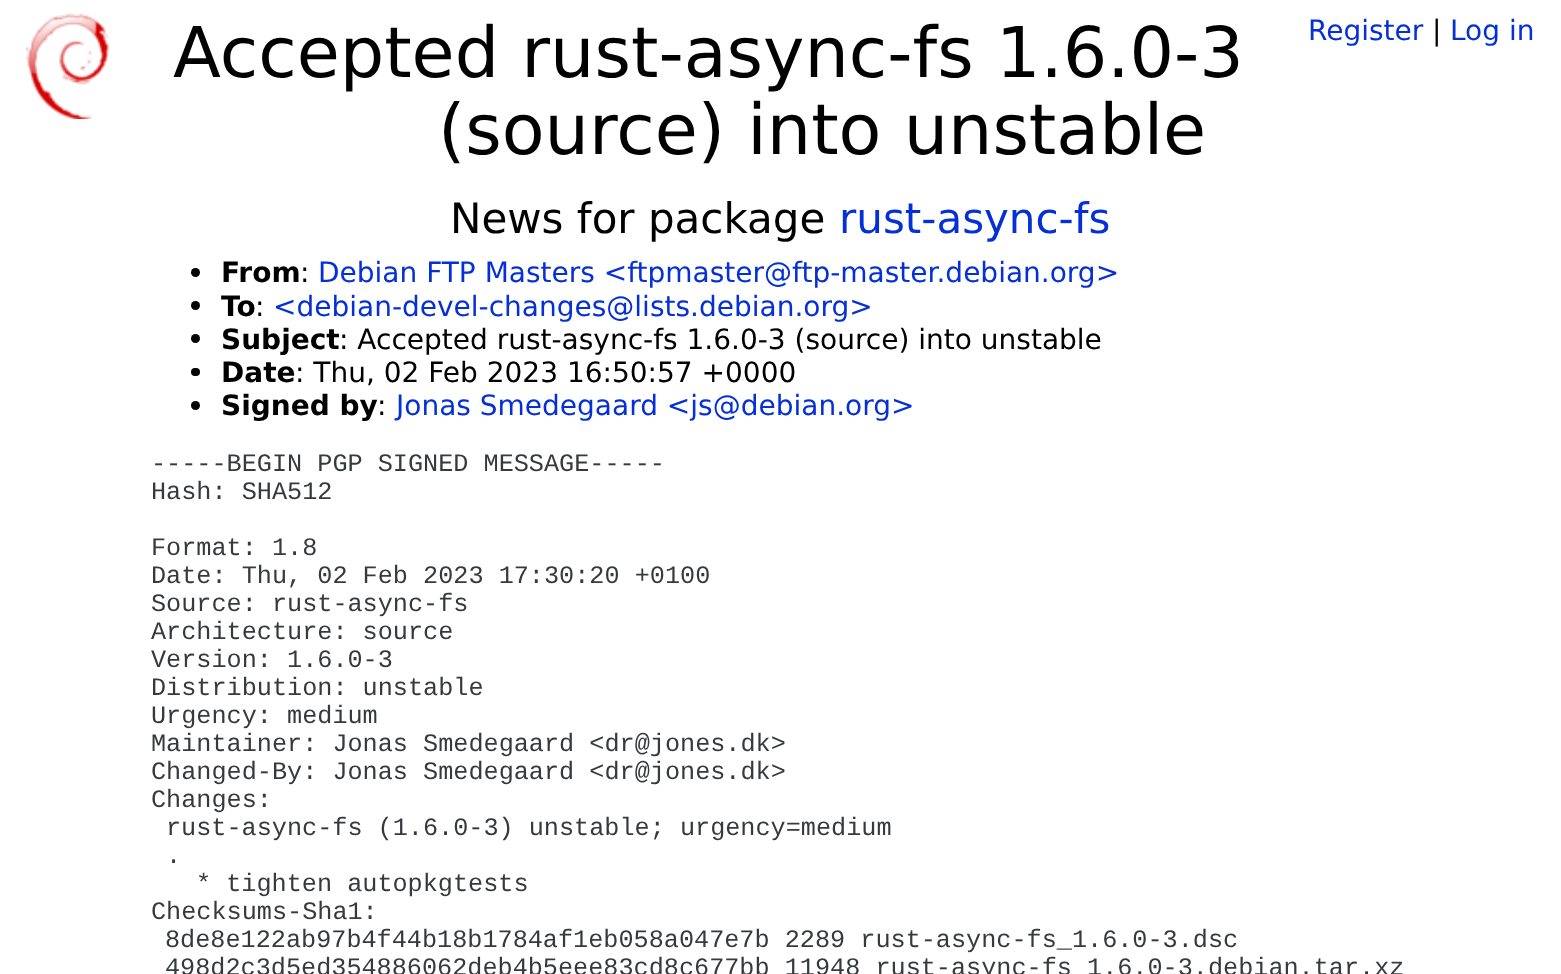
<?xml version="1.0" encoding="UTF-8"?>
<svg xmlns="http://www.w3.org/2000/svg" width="1561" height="974">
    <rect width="100%" height="100%" fill="#FFFFFF"/>
    <image x="26" y="14" width="83" height="105" href="img_01.png"/>
    <text x="173" y="77" font-family="DejaVu Sans" font-size="70" fill="#000000">Accepted rust-async-fs 1.6.0-3</text>
    <text x="438" y="154" font-family="DejaVu Sans" font-size="70" fill="#000000">(source) into unstable</text>
    <text x="1308" y="40" font-family="DejaVu Sans" font-size="28" fill="#0530D7">Register</text>
    <text x="1432" y="40" font-family="DejaVu Sans" font-size="28" fill="#000000">|</text>
    <text x="1450" y="40" font-family="DejaVu Sans" font-size="28" fill="#0530D7">Log in</text>
    <text x="450" y="233" font-family="DejaVu Sans" font-size="42" fill="#000000">News for package</text>
    <text x="839" y="233" font-family="DejaVu Sans" font-size="42" fill="#0530D7">rust-async-fs</text>
    <circle cx="195.5" cy="272.5" r="4.5" fill="#000000"/>
    <text x="221" y="282" font-family="DejaVu Sans" font-size="28" font-weight="700" fill="#000000">From</text>
    <text x="300" y="282" font-family="DejaVu Sans" font-size="28" fill="#000000">:</text>
    <text x="318" y="282" font-family="DejaVu Sans" font-size="28" fill="#0530D7">Debian FTP Masters &lt;ftpmaster@ftp-master.debian.org&gt;</text>
    <circle cx="195.5" cy="305.5" r="4.5" fill="#000000"/>
    <text x="221" y="316" font-family="DejaVu Sans" font-size="28" font-weight="700" fill="#000000">To</text>
    <text x="255" y="316" font-family="DejaVu Sans" font-size="28" fill="#000000">:</text>
    <text x="273" y="316" font-family="DejaVu Sans" font-size="28" fill="#0530D7">&lt;debian-devel-changes@lists.debian.org&gt;</text>
    <circle cx="195.5" cy="338.5" r="4.5" fill="#000000"/>
    <text x="221" y="349" font-family="DejaVu Sans" font-size="28" font-weight="700" fill="#000000">Subject</text>
    <text x="339" y="349" font-family="DejaVu Sans" font-size="28" fill="#000000">: Accepted rust-async-fs 1.6.0-3 (source) into unstable</text>
    <rect x="191" y="368" width="9" height="8" rx="4" fill="#000000"/>
    <text x="221" y="382" font-family="DejaVu Sans" font-size="28" font-weight="700" fill="#000000">Date</text>
    <text x="295" y="382" font-family="DejaVu Sans" font-size="28" fill="#000000">: Thu, 02 Feb 2023 16:50:57 +0000</text>
    <circle cx="195.5" cy="405.5" r="4.5" fill="#000000"/>
    <text x="221" y="415" font-family="DejaVu Sans" font-size="28" font-weight="700" fill="#000000">Signed by</text>
    <text x="377" y="415" font-family="DejaVu Sans" font-size="28" fill="#000000">:</text>
    <text x="396" y="415" font-family="DejaVu Sans" font-size="28" fill="#0530D7">Jonas Smedegaard &lt;js@debian.org&gt;</text>
    <text font-family="Liberation Mono" font-size="25.2" fill="#373A3C">
        <tspan x="151" y="471">-----BEGIN PGP SIGNED MESSAGE-----</tspan>
        <tspan x="151" y="499">Hash: SHA512</tspan>
    </text>
    <text font-family="Liberation Mono" font-size="25.2" fill="#373A3C">
        <tspan x="151" y="555">Format: 1.8</tspan>
        <tspan x="151" y="583">Date: Thu, 02 Feb 2023 17:30:20 +0100</tspan>
        <tspan x="151" y="611">Source: rust-async-fs</tspan>
        <tspan x="151" y="639">Architecture: source</tspan>
        <tspan x="151" y="667">Version: 1.6.0-3</tspan>
        <tspan x="151" y="695">Distribution: unstable</tspan>
        <tspan x="151" y="723">Urgency: medium</tspan>
        <tspan x="151" y="751">Maintainer: Jonas Smedegaard &lt;dr@jones.dk&gt;</tspan>
        <tspan x="151" y="779">Changed-By: Jonas Smedegaard &lt;dr@jones.dk&gt;</tspan>
        <tspan x="151" y="807">Changes:</tspan>
    </text>
    <text font-family="Liberation Mono" font-size="25.2" fill="#373A3C">
        <tspan x="166" y="835">rust-async-fs (1.6.0-3) unstable; urgency=medium</tspan>
        <tspan x="166" y="863">.</tspan>
    </text>
    <text x="196" y="891" font-family="Liberation Mono" font-size="25.2" fill="#373A3C">* tighten autopkgtests</text>
    <text x="151" y="919" font-family="Liberation Mono" font-size="25.2" fill="#373A3C">Checksums-Sha1:</text>
    <text font-family="Liberation Mono" font-size="25.2" fill="#373A3C">
        <tspan x="165" y="947">8de8e122ab97b4f44b18b1784af1eb058a047e7b 2289 rust-async-fs_1.6.0-3.dsc</tspan>
        <tspan x="165" y="975">498d2c3d5ed354886062deb4b5eee83cd8c677bb 11948 rust-async-fs_1.6.0-3.debian.tar.xz</tspan>
    </text>
</svg>
